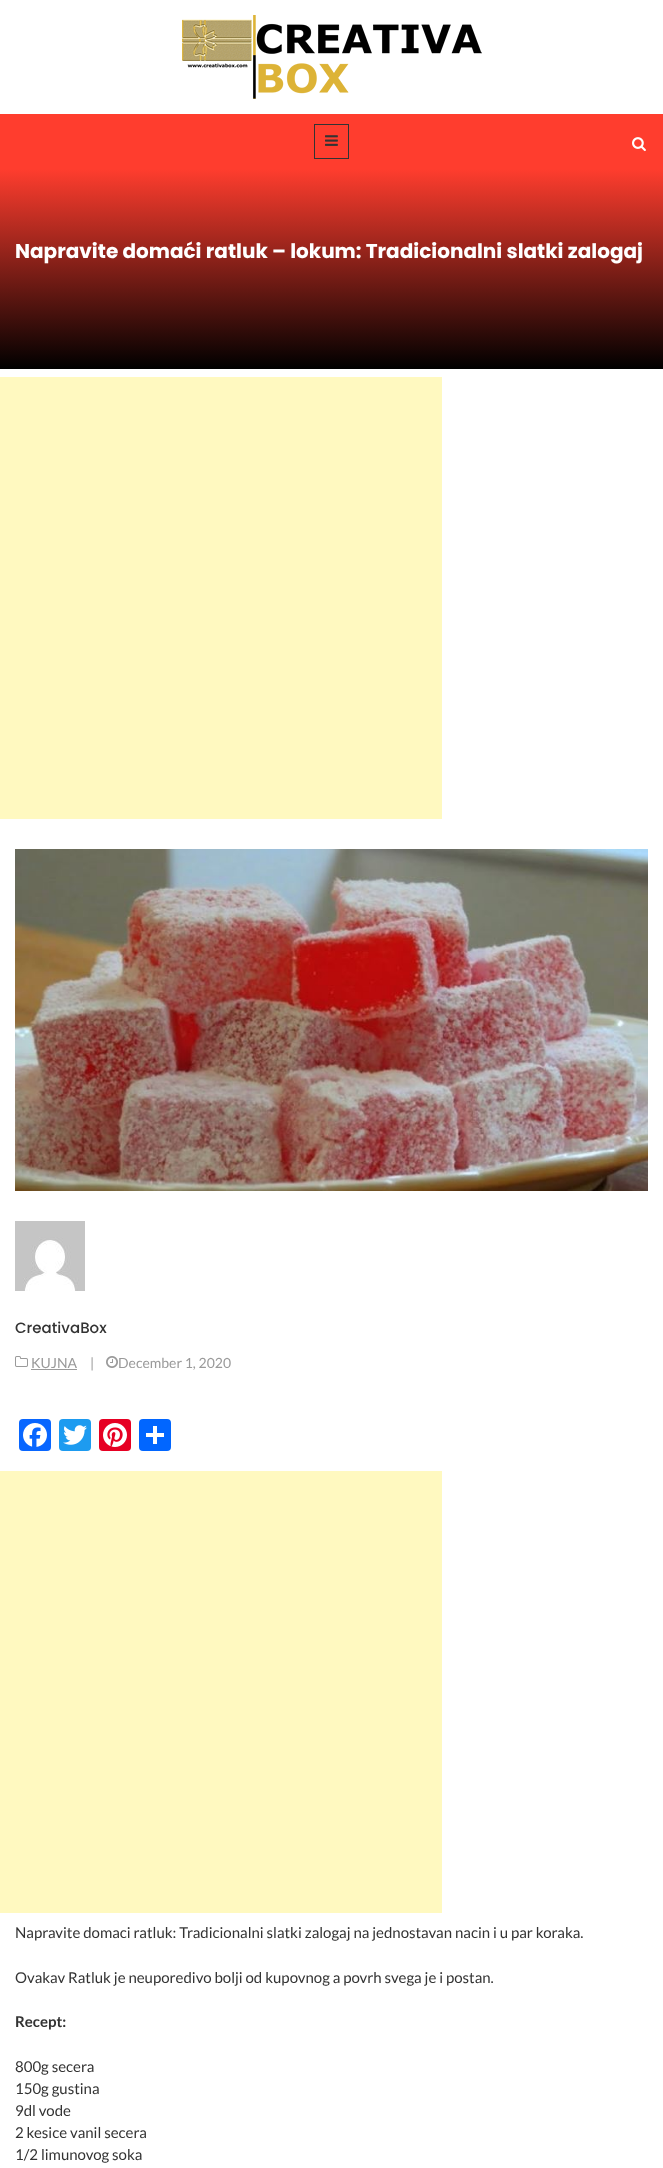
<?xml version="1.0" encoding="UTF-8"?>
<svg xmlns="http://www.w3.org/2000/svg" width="663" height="2168">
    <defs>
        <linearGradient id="g1" gradientUnits="userSpaceOnUse" x1="332" y1="169" x2="332" y2="369"><stop offset="0" stop-color="#FF3D2E"/><stop offset="1" stop-color="#000000"/></linearGradient>
    </defs>
    <rect width="100%" height="100%" fill="#FFFFFF"/>
    <image x="182" y="15" width="300" height="84" href="img_01.png"/>
    <rect x="0" y="114" width="663" height="55" fill="#FF3D2E"/>
    <rect x="314.5" y="124.5" width="34" height="34" fill="none" stroke="#333333"/>
    <image x="325" y="135" width="13" height="11" href="img_02.png"/>
    <image x="632" y="137" width="14" height="15" href="img_03.png"/>
    <rect x="0" y="169" width="663" height="200" fill="url(#g1)"/>
    <text x="15" y="258" font-family="Poppins" font-size="20" font-weight="700" fill="#FFFFFF">Napravite domaći ratluk – lokum: Tradicionalni slatki zalogaj</text>
    <rect x="0" y="377" width="442" height="442" fill="#FFF9C0"/>
    <image x="15" y="849" width="633" height="342" href="img_04.png"/>
    <image x="15" y="1221" width="70" height="70" href="img_05.png"/>
    <text x="15" y="1333" font-family="Poppins" font-size="15" font-weight="500" fill="#333333">CreativaBox</text>
    <image x="15" y="1356" width="13" height="11" href="img_06.png"/>
    <text x="31" y="1368" font-family="Lato" font-size="14" fill="#9A9A9A">KUJNA</text>
    <rect x="31" y="1369" width="46" height="1" fill="#9A9A9A"/>
    <text x="90" y="1368" font-family="Lato" font-size="14" fill="#9A9A9A">|</text>
    <image x="106" y="1356" width="12" height="12" href="img_07.png"/>
    <text x="118" y="1368" font-family="Lato" font-size="14" fill="#9A9A9A">December 1, 2020</text>
    <rect x="19" y="1419" width="32" height="32" rx="4" fill="#0866FF"/>
    <image x="23" y="1423" width="24" height="24" href="img_08.png"/>
    <rect x="59" y="1419" width="32" height="32" rx="4" fill="#1D9BF0"/>
    <image x="63" y="1425" width="24" height="20" href="img_09.png"/>
    <rect x="99" y="1419" width="32" height="32" rx="4" fill="#E60023"/>
    <image x="103" y="1423" width="24" height="24" href="img_10.png"/>
    <rect x="139" y="1419" width="32" height="32" rx="4" fill="#0166FF"/>
    <rect x="153" y="1426" width="4" height="18" fill="#FFFFFF"/>
    <rect x="146" y="1433" width="18" height="4" fill="#FFFFFF"/>
    <rect x="0" y="1471" width="442" height="442" fill="#FFF9C0"/>
    <text x="15" y="1938" font-family="Lato" font-size="15" fill="#333333">Napravite domaci ratluk: Tradicionalni slatki zalogaj na jednostavan nacin i u par koraka.</text>
    <text x="15" y="1983" font-family="Lato" font-size="15" fill="#333333">Ovakav Ratluk je neuporedivo bolji od kupovnog a povrh svega je i postan.</text>
    <text x="15" y="2027" font-family="Lato" font-size="15" font-weight="700" fill="#333333">Recept:</text>
    <text font-family="Lato" font-size="15" fill="#333333">
        <tspan x="15" y="2072">800g secera</tspan>
        <tspan x="15" y="2094">150g gustina</tspan>
        <tspan x="15" y="2116">9dl vode</tspan>
        <tspan x="15" y="2138">2 kesice vanil secera</tspan>
        <tspan x="15" y="2160">1/2 limunovog soka</tspan>
    </text>
</svg>
